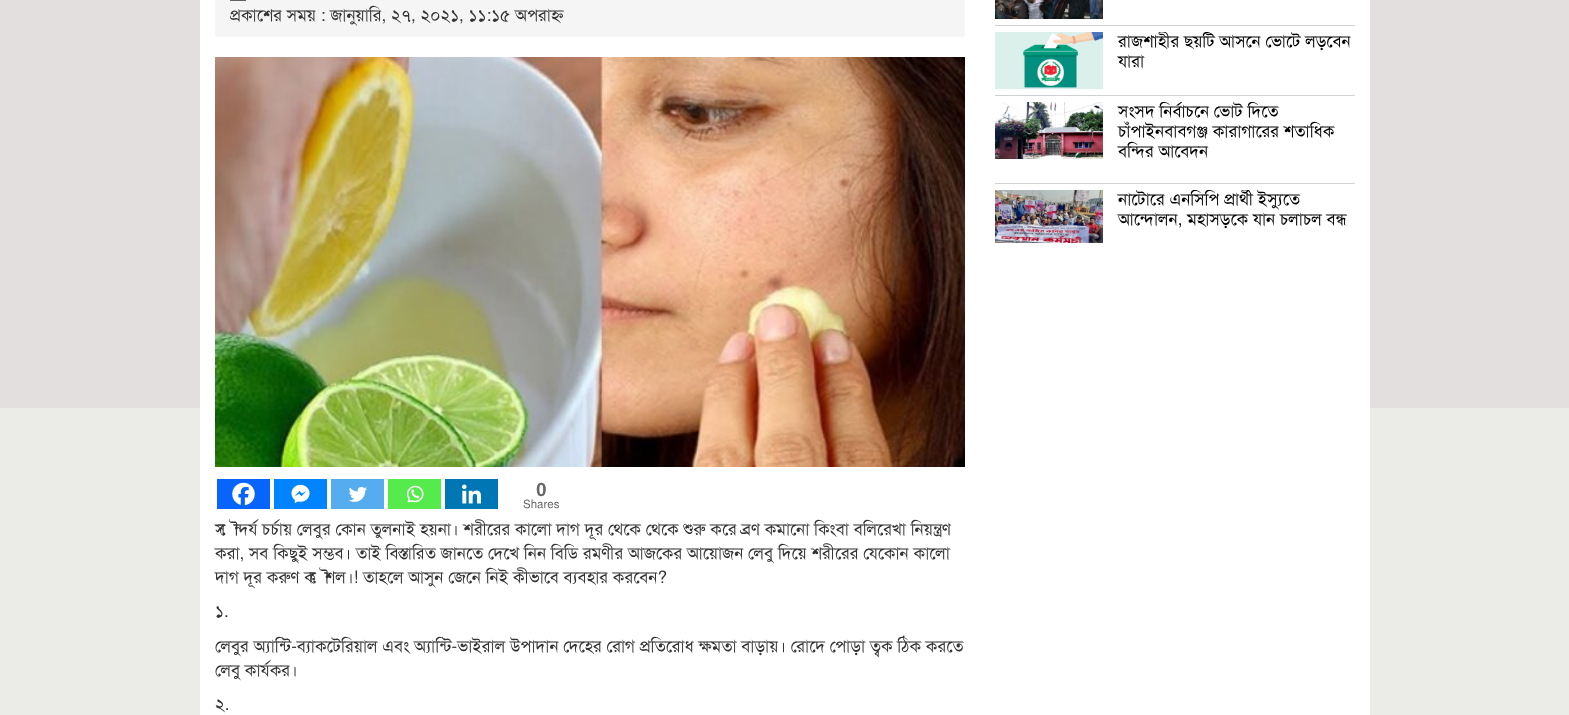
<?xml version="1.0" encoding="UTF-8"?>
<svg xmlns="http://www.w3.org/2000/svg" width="1569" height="715">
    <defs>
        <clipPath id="clip1"><rect x="995" y="32" width="360" height="63"/></clipPath>
        <clipPath id="clip2"><rect x="995" y="102" width="360" height="81"/></clipPath>
        <clipPath id="clip3"><rect x="995" y="190" width="360" height="53"/></clipPath>
    </defs>
    <rect width="100%" height="100%" fill="#EBECE7"/>
    <rect x="0" y="0" width="1569" height="408" fill="#E3DFDF"/>
    <rect x="200" y="0" width="1170" height="715" fill="#FFFFFF"/>
    <rect x="215" y="-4" width="750" height="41" rx="4" fill="#F5F5F5"/>
    <image x="230" y="0" width="16" height="1" href="img_01.png"/>
    <text x="230" y="21" font-family="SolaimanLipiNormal" font-size="17" fill="#333333">প্রকাশের সময় : জানুয়ারি, ২৭, ২০২১, ১১:১৫ অপরাহ্ণ</text>
    <image x="215" y="57" width="750" height="410" href="img_02.png"/>
    <rect x="217" y="479" width="53" height="30" fill="#0765FE"/>
    <image x="232" y="482" width="23" height="24" href="img_03.png"/>
    <rect x="274" y="479" width="53" height="30" fill="#0084FF"/>
    <image x="291" y="484" width="19" height="20" href="img_04.png"/>
    <rect x="331" y="479" width="53" height="30" fill="#55ACEE"/>
    <image x="348" y="486" width="19" height="16" href="img_05.png"/>
    <rect x="388" y="479" width="53" height="30" fill="#55EB4C"/>
    <image x="407" y="485" width="17" height="18" href="img_06.png"/>
    <rect x="445" y="479" width="53" height="30" fill="#0077B5"/>
    <image x="462" y="484" width="19" height="20" href="img_07.png"/>
    <text x="536" y="496" font-family="Liberation Sans" font-size="19" font-weight="700" fill="#666666">0</text>
    <text x="523" y="508" font-family="SolaimanLipiNormal" font-size="11.5" fill="#666666">Shares</text>
    <text font-family="SolaimanLipiNormal" font-size="17" fill="#333333">
        <tspan x="215" y="535">সৌন্দর্য চর্চায় লেবুর কোন তুলনাই হয়না। শরীরের কালো দাগ দূর থেকে থেকে শুরু করে ব্রণ কমানো কিংবা বলিরেখা নিয়ন্ত্রণ</tspan>
        <tspan x="215" y="559">করা, সব কিছুই সম্ভব। তাই বিস্তারিত জানতে দেখে নিন বিডি রমণীর আজকের আয়োজন লেবু দিয়ে শরীরের যেকোন কালো</tspan>
        <tspan x="215" y="583">দাগ দূর করুণ কৌশল।! তাহলে আসুন জেনে নিই কীভাবে ব্যবহার করবেন?</tspan>
    </text>
    <text x="215" y="617" font-family="SolaimanLipiNormal" font-size="17" fill="#333333">১.</text>
    <text font-family="SolaimanLipiNormal" font-size="17" fill="#333333">
        <tspan x="215" y="652">লেবুর অ্যান্টি-ব্যাকটেরিয়াল এবং অ্যান্টি-ভাইরাল উপাদান দেহের রোগ প্রতিরোধ ক্ষমতা বাড়ায়। রোদে পোড়া ত্বক ঠিক করতে</tspan>
        <tspan x="215" y="676">লেবু কার্যকর।</tspan>
    </text>
    <text x="215" y="710" font-family="SolaimanLipiNormal" font-size="17" fill="#333333">২.</text>
    <rect x="995" y="25" width="360" height="1" fill="#CFD3D5"/>
    <image x="995" y="0" width="108" height="19" href="img_08.png"/>
    <rect x="995" y="95" width="360" height="1" fill="#CFD3D5"/>
    <image x="995" y="32" width="108" height="57" href="img_09.png"/>
    <g clip-path="url(#clip1)">
        <text x="1118" y="47" font-family="SolaimanLipiNormal" font-size="17" fill="#000000">রাজশাহীর ছয়টি আসনে ভোটে লড়বেন</text>
    </g>
    <text x="1118" y="67" font-family="SolaimanLipiNormal" font-size="17" fill="#000000">যারা</text>
    <rect x="995" y="183" width="360" height="1" fill="#CFD3D5"/>
    <image x="995" y="102" width="108" height="57" href="img_10.png"/>
    <g clip-path="url(#clip2)">
        <text x="1118" y="117" font-family="SolaimanLipiNormal" font-size="17" fill="#000000">সংসদ নির্বাচনে ভোট দিতে</text>
    </g>
    <text font-family="SolaimanLipiNormal" font-size="17" fill="#000000">
        <tspan x="1118" y="137">চাঁপাইনবাবগঞ্জ কারাগারের শতাধিক</tspan>
        <tspan x="1118" y="157">বন্দির আবেদন</tspan>
    </text>
    <image x="995" y="190" width="108" height="53" href="img_11.png"/>
    <g clip-path="url(#clip3)">
        <text x="1118" y="205" font-family="SolaimanLipiNormal" font-size="17" fill="#000000">নাটোরে এনসিপি প্রার্থী ইস্যুতে</text>
    </g>
    <text x="1118" y="225" font-family="SolaimanLipiNormal" font-size="17" fill="#000000">আন্দোলন, মহাসড়কে যান চলাচল বন্ধ</text>
</svg>
